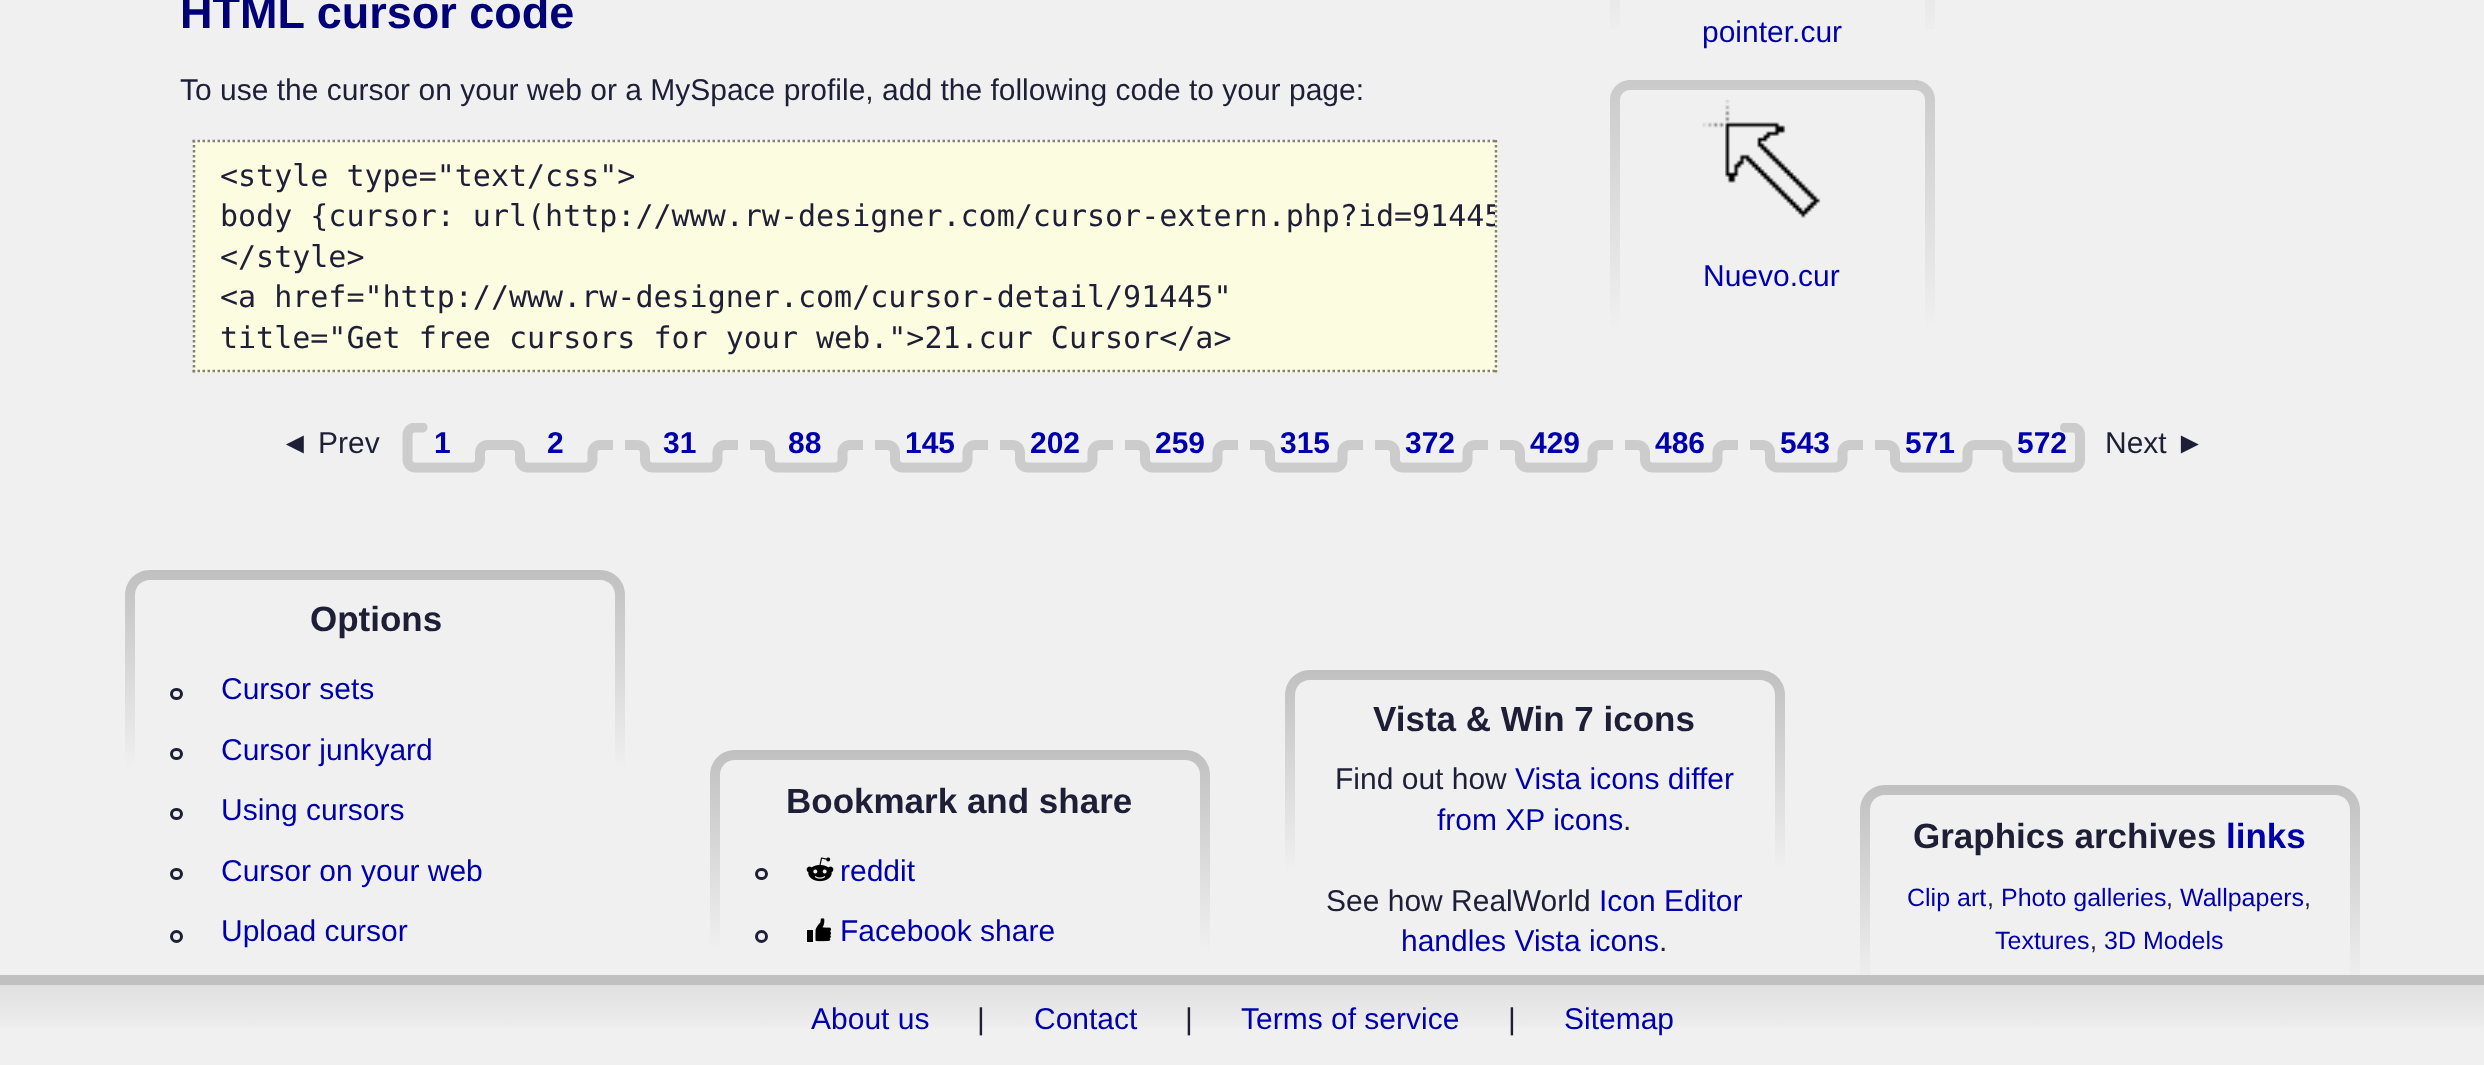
<?xml version="1.0" encoding="UTF-8"?>
<svg xmlns="http://www.w3.org/2000/svg" width="2484" height="1065">
    <defs>
        <clipPath id="clip1"><rect x="195" y="143" width="1300" height="227"/></clipPath>
        <linearGradient id="g1" gradientUnits="userSpaceOnUse" x1="1773" y1="-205" x2="1773" y2="45"><stop offset="0" stop-color="#CACACA"/><stop offset="1" stop-color="#F0F0F0"/></linearGradient>
        <linearGradient id="g2" gradientUnits="userSpaceOnUse" x1="1773" y1="80" x2="1773" y2="330"><stop offset="0" stop-color="#CACACA"/><stop offset="1" stop-color="#F0F0F0"/></linearGradient>
        <linearGradient id="g3" gradientUnits="userSpaceOnUse" x1="375" y1="570" x2="375" y2="975"><stop offset="0" stop-color="#C0C0C0"/><stop offset="0.49" stop-color="#F0F0F0"/></linearGradient>
        <linearGradient id="g4" gradientUnits="userSpaceOnUse" x1="960" y1="750" x2="960" y2="975"><stop offset="0" stop-color="#C0C0C0"/><stop offset="0.89" stop-color="#F0F0F0"/></linearGradient>
        <linearGradient id="g5" gradientUnits="userSpaceOnUse" x1="1535" y1="670" x2="1535" y2="975"><stop offset="0" stop-color="#C0C0C0"/><stop offset="0.66" stop-color="#F0F0F0"/></linearGradient>
        <linearGradient id="g6" gradientUnits="userSpaceOnUse" x1="2110" y1="785" x2="2110" y2="985"><stop offset="0" stop-color="#C0C0C0"/><stop offset="1" stop-color="#F0F0F0"/></linearGradient>
        <linearGradient id="g7" gradientUnits="userSpaceOnUse" x1="1243" y1="975" x2="1243" y2="1065"><stop offset="0" stop-color="#C0C0C0"/><stop offset="0.11" stop-color="#C0C0C0"/><stop offset="0.11" stop-color="#E0E0E0"/><stop offset="0.67" stop-color="#F0F0F0"/></linearGradient>
    </defs>
    <rect width="100%" height="100%" fill="#F0F0F0"/>
    <text x="180" y="28" font-family="Liberation Sans" font-size="45" font-weight="700" fill="#000077">HTML cursor code</text>
    <text x="180" y="100" font-family="Liberation Sans" font-size="30" fill="#1E1E37">To use the cursor on your web or a MySpace profile, add the following code to your page:</text>
    <rect x="193" y="140" width="1305" height="233" fill="#FCFCE0"/>
    <path d="M 192.5 141 H 1497.5" fill="none" stroke="#808080" stroke-width="2.5" stroke-dasharray="2.5 2.5"/>
    <path d="M 1496 140 V 372.5" fill="none" stroke="#808080" stroke-width="2.5" stroke-dasharray="2.5 2.5"/>
    <path d="M 192.5 371 H 1497.5" fill="none" stroke="#808080" stroke-width="2.5" stroke-dasharray="2.5 2.5"/>
    <path d="M 194 140 V 372.5" fill="none" stroke="#808080" stroke-width="2.5" stroke-dasharray="2.5 2.5"/>
    <text x="220" y="186" font-family="DejaVu Sans Mono" font-size="30" fill="#1E1E37">&lt;style type="text/css"&gt;</text>
    <g clip-path="url(#clip1)">
        <text x="220" y="226" font-family="DejaVu Sans Mono" font-size="30" fill="#1E1E37">body {cursor: url(http://www.rw-designer.com/cursor-extern.php?id=91445</text>
    </g>
    <text font-family="DejaVu Sans Mono" font-size="30" fill="#1E1E37">
        <tspan x="220" y="267">&lt;/style&gt;</tspan>
        <tspan x="220" y="307">&lt;a href="http://www.rw-designer.com/cursor-detail/91445"</tspan>
        <tspan x="220" y="348">title="Get free cursors for your web."&gt;21.cur Cursor&lt;/a&gt;</tspan>
    </text>
    <rect x="1610" y="0" width="325" height="29" fill="url(#g1)"/>
    <rect x="1620" y="0" width="305" height="29" fill="#F0F0F0"/>
    <text x="1702" y="42" font-family="Liberation Sans" font-size="30" fill="#0000AA">pointer.cur</text>
    <path d="M 1630 80 H 1915 C 1926 80 1935 89 1935 100 V 330 H 1610 V 100 C 1610 89 1619 80 1630 80 Z" fill="url(#g2)"/>
    <path d="M 1630 90 H 1915 C 1920.5 90 1925 94.5 1925 100 V 330 H 1620 V 100 C 1620 94.5 1624.5 90 1630 90 Z" fill="#F0F0F0"/>
    <image x="1702" y="100" width="119" height="118" href="img_01.png"/>
    <text x="1703" y="286" font-family="Liberation Sans" font-size="30" fill="#0000AA">Nuevo.cur</text>
    <text x="280" y="453" font-family="Liberation Sans" font-size="30" fill="#1E1E37">◄ Prev</text>
    <image x="402" y="423" width="98" height="50" href="img_02.png"/>
    <text x="434" y="453" font-family="Liberation Sans" font-size="30" font-weight="700" fill="#0000AA">1</text>
    <image x="500" y="440" width="113" height="33" href="img_03.png"/>
    <text x="547" y="453" font-family="Liberation Sans" font-size="30" font-weight="700" fill="#0000AA">2</text>
    <image x="625" y="440" width="113" height="33" href="img_03.png"/>
    <text x="663" y="453" font-family="Liberation Sans" font-size="30" font-weight="700" fill="#0000AA">31</text>
    <image x="750" y="440" width="113" height="33" href="img_03.png"/>
    <text x="788" y="453" font-family="Liberation Sans" font-size="30" font-weight="700" fill="#0000AA">88</text>
    <image x="875" y="440" width="113" height="33" href="img_03.png"/>
    <text x="905" y="453" font-family="Liberation Sans" font-size="30" font-weight="700" fill="#0000AA">145</text>
    <image x="1000" y="440" width="113" height="33" href="img_03.png"/>
    <text x="1030" y="453" font-family="Liberation Sans" font-size="30" font-weight="700" fill="#0000AA">202</text>
    <image x="1125" y="440" width="113" height="33" href="img_03.png"/>
    <text x="1155" y="453" font-family="Liberation Sans" font-size="30" font-weight="700" fill="#0000AA">259</text>
    <image x="1250" y="440" width="113" height="33" href="img_03.png"/>
    <text x="1280" y="453" font-family="Liberation Sans" font-size="30" font-weight="700" fill="#0000AA">315</text>
    <image x="1375" y="440" width="113" height="33" href="img_03.png"/>
    <text x="1405" y="453" font-family="Liberation Sans" font-size="30" font-weight="700" fill="#0000AA">372</text>
    <image x="1500" y="440" width="113" height="33" href="img_03.png"/>
    <text x="1530" y="453" font-family="Liberation Sans" font-size="30" font-weight="700" fill="#0000AA">429</text>
    <image x="1625" y="440" width="113" height="33" href="img_03.png"/>
    <text x="1655" y="453" font-family="Liberation Sans" font-size="30" font-weight="700" fill="#0000AA">486</text>
    <image x="1750" y="440" width="113" height="33" href="img_03.png"/>
    <text x="1780" y="453" font-family="Liberation Sans" font-size="30" font-weight="700" fill="#0000AA">543</text>
    <image x="1875" y="440" width="113" height="33" href="img_03.png"/>
    <text x="1905" y="453" font-family="Liberation Sans" font-size="30" font-weight="700" fill="#0000AA">571</text>
    <image x="1988" y="423" width="97" height="50" href="img_04.png"/>
    <text x="2017" y="453" font-family="Liberation Sans" font-size="30" font-weight="700" fill="#0000AA">572</text>
    <text x="2105" y="453" font-family="Liberation Sans" font-size="30" fill="#1E1E37">Next ►</text>
    <path d="M 150 570 H 600 C 614 570 625 581 625 595 V 975 H 125 V 595 C 125 581 136 570 150 570 Z" fill="url(#g3)"/>
    <path d="M 150 580 H 600 C 608.5 580 615 586.5 615 595 V 975 H 135 V 595 C 135 586.5 141.5 580 150 580 Z" fill="#F0F0F0"/>
    <text x="310" y="631" font-family="Liberation Sans" font-size="35" font-weight="700" fill="#1E1E37">Options</text>
    <rect x="171.5" y="689.5" width="10" height="9" rx="4.5" fill="none" stroke="#1E1E37" stroke-width="3"/>
    <text x="221" y="699" font-family="Liberation Sans" font-size="30" fill="#0000AA">Cursor sets</text>
    <rect x="171.5" y="749.5" width="10" height="9" rx="4.5" fill="none" stroke="#1E1E37" stroke-width="3"/>
    <text x="221" y="760" font-family="Liberation Sans" font-size="30" fill="#0000AA">Cursor junkyard</text>
    <rect x="171.5" y="809.5" width="10" height="9" rx="4.5" fill="none" stroke="#1E1E37" stroke-width="3"/>
    <text x="221" y="820" font-family="Liberation Sans" font-size="30" fill="#0000AA">Using cursors</text>
    <rect x="171.5" y="869.5" width="10" height="9" rx="4.5" fill="none" stroke="#1E1E37" stroke-width="3"/>
    <text x="221" y="881" font-family="Liberation Sans" font-size="30" fill="#0000AA">Cursor on your web</text>
    <circle cx="176.5" cy="936.5" r="5" fill="none" stroke="#1E1E37" stroke-width="3"/>
    <text x="221" y="941" font-family="Liberation Sans" font-size="30" fill="#0000AA">Upload cursor</text>
    <path d="M 735 750 H 1185 C 1199 750 1210 761 1210 775 V 975 H 710 V 775 C 710 761 721 750 735 750 Z" fill="url(#g4)"/>
    <path d="M 735 760 H 1185 C 1193.5 760 1200 766.5 1200 775 V 975 H 720 V 775 C 720 766.5 726.5 760 735 760 Z" fill="#F0F0F0"/>
    <text x="786" y="813" font-family="Liberation Sans" font-size="35" font-weight="700" fill="#1E1E37">Bookmark and share</text>
    <rect x="756.5" y="869.5" width="10" height="9" rx="4.5" fill="none" stroke="#1E1E37" stroke-width="3"/>
    <image x="806" y="857" width="28" height="25" href="img_05.png"/>
    <text x="840" y="881" font-family="Liberation Sans" font-size="30" fill="#0000AA">reddit</text>
    <circle cx="761.5" cy="936.5" r="5" fill="none" stroke="#1E1E37" stroke-width="3"/>
    <image x="807" y="918" width="25" height="24" href="img_06.png"/>
    <text x="840" y="941" font-family="Liberation Sans" font-size="30" fill="#0000AA">Facebook share</text>
    <path d="M 1310 670 H 1760 C 1774 670 1785 681 1785 695 V 975 H 1285 V 695 C 1285 681 1296 670 1310 670 Z" fill="url(#g5)"/>
    <path d="M 1310 680 H 1760 C 1768.5 680 1775 686.5 1775 695 V 975 H 1295 V 695 C 1295 686.5 1301.5 680 1310 680 Z" fill="#F0F0F0"/>
    <text x="1373" y="731" font-family="Liberation Sans" font-size="35" font-weight="700" fill="#1E1E37">Vista &amp; Win 7 icons</text>
    <text x="1335" y="789" font-family="Liberation Sans" font-size="30" fill="#1E1E37">Find out how</text>
    <text x="1515" y="789" font-family="Liberation Sans" font-size="30" fill="#0000AA">Vista icons differ</text>
    <text x="1437" y="830" font-family="Liberation Sans" font-size="30" fill="#0000AA">from XP icons</text>
    <text x="1623" y="830" font-family="Liberation Sans" font-size="30" fill="#1E1E37">.</text>
    <text x="1326" y="911" font-family="Liberation Sans" font-size="30" fill="#1E1E37">See how RealWorld</text>
    <text x="1599" y="911" font-family="Liberation Sans" font-size="30" fill="#0000AA">Icon Editor</text>
    <text x="1401" y="951" font-family="Liberation Sans" font-size="30" fill="#0000AA">handles Vista icons</text>
    <text x="1659" y="951" font-family="Liberation Sans" font-size="30" fill="#1E1E37">.</text>
    <path d="M 1885 785 H 2335 C 2349 785 2360 796 2360 810 V 975 H 1860 V 810 C 1860 796 1871 785 1885 785 Z" fill="url(#g6)"/>
    <path d="M 1885 795 H 2335 C 2343.5 795 2350 801.5 2350 810 V 975 H 1870 V 810 C 1870 801.5 1876.5 795 1885 795 Z" fill="#F0F0F0"/>
    <text x="1913" y="848" font-family="Liberation Sans" font-size="35" font-weight="700" fill="#1E1E37">Graphics archives</text>
    <text x="2226" y="848" font-family="Liberation Sans" font-size="35" font-weight="700" fill="#0000AA">links</text>
    <text x="1907" y="906" font-family="Liberation Sans" font-size="25" fill="#0000AA">Clip art</text>
    <text x="1987" y="906" font-family="Liberation Sans" font-size="25" fill="#1E1E37">,</text>
    <text x="2001" y="906" font-family="Liberation Sans" font-size="25" fill="#0000AA">Photo galleries</text>
    <text x="2166" y="906" font-family="Liberation Sans" font-size="25" fill="#1E1E37">,</text>
    <text x="2180" y="906" font-family="Liberation Sans" font-size="25" fill="#0000AA">Wallpapers</text>
    <text x="2304" y="906" font-family="Liberation Sans" font-size="25" fill="#1E1E37">,</text>
    <text x="1995" y="949" font-family="Liberation Sans" font-size="25" fill="#0000AA">Textures</text>
    <text x="2090" y="949" font-family="Liberation Sans" font-size="25" fill="#1E1E37">,</text>
    <text x="2104" y="949" font-family="Liberation Sans" font-size="25" fill="#0000AA">3D Models</text>
    <rect x="0" y="975" width="2484" height="52" fill="url(#g7)"/>
    <text x="811" y="1029" font-family="Liberation Sans" font-size="30" fill="#0000AA">About us</text>
    <text x="977" y="1029" font-family="Liberation Sans" font-size="30" fill="#1E1E37">|</text>
    <text x="1034" y="1029" font-family="Liberation Sans" font-size="30" fill="#0000AA">Contact</text>
    <text x="1185" y="1029" font-family="Liberation Sans" font-size="30" fill="#1E1E37">|</text>
    <text x="1241" y="1029" font-family="Liberation Sans" font-size="30" fill="#0000AA">Terms of service</text>
    <text x="1508" y="1029" font-family="Liberation Sans" font-size="30" fill="#1E1E37">|</text>
    <text x="1564" y="1029" font-family="Liberation Sans" font-size="30" fill="#0000AA">Sitemap</text>
</svg>
